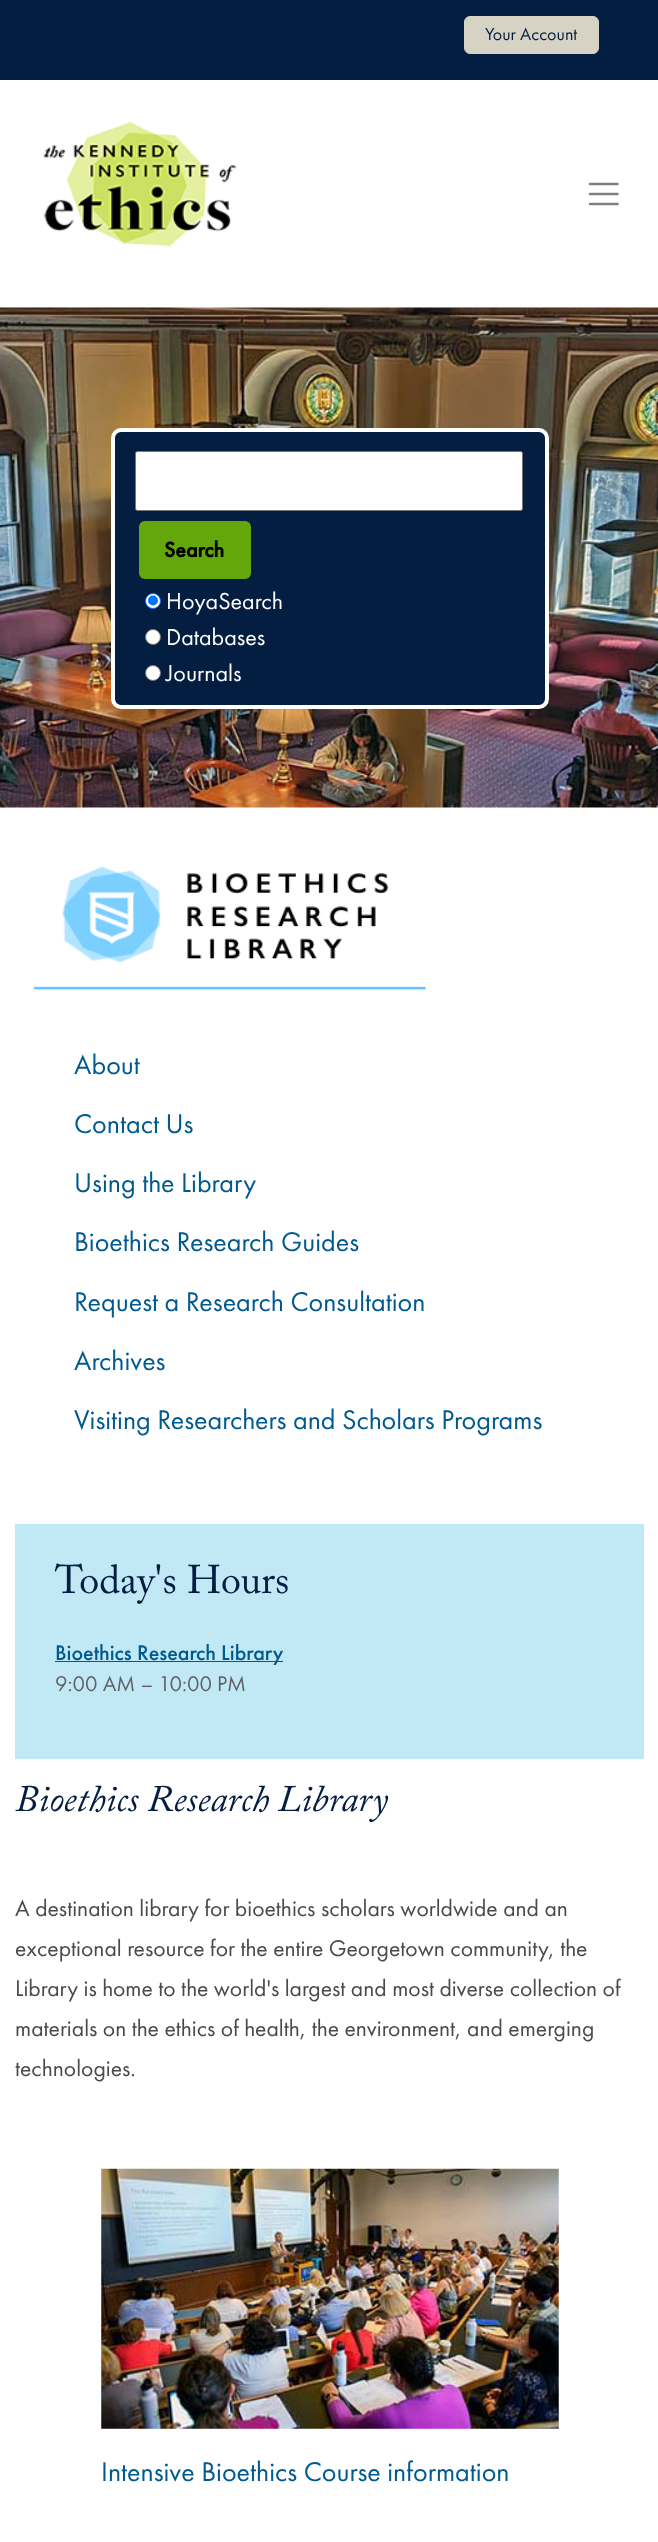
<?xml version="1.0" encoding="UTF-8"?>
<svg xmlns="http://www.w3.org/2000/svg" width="658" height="2542">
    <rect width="100%" height="100%" fill="#FFFFFF"/>
    <rect x="0" y="0" width="658" height="80" fill="#041E42"/>
    <rect x="464.5" y="16.5" width="134" height="37" rx="5.5" fill="#D6D2C4" stroke="#D6D2C4"/>
    <text x="485" y="40" font-family="Futura PT" font-size="18" fill="#041E42">Your Account</text>
    <image x="43" y="121" width="194" height="127" href="img_01.png"/>
    <path d="M 590 184 H 617.5 M 590 194 H 617.5 M 590 204 H 617.5" fill="none" stroke="#808080" stroke-width="2.5" stroke-linecap="round"/>
    <image x="0" y="307" width="658" height="501" href="img_02.png"/>
    <rect x="113" y="430" width="434" height="277" rx="8" fill="#041E42" stroke="#FFFFFF" stroke-width="4"/>
    <rect x="135.5" y="451.5" width="387" height="59" rx="2" fill="#FFFFFF" stroke="#767676"/>
    <rect x="139" y="521" width="112" height="58" rx="6" fill="#64A70B"/>
    <text x="164" y="557" font-family="Futura PT" font-size="22" font-weight="700" fill="#000000">Search</text>
    <circle cx="153" cy="601" r="7.5" fill="#FFFFFF" stroke="#0075FF"/>
    <circle cx="153" cy="600.5" r="5" fill="#0075FF"/>
    <text x="166" y="609" font-family="Futura PT" font-size="24" fill="#FFFFFF">HoyaSearch</text>
    <circle cx="153" cy="637" r="7.5" fill="#FFFFFF" stroke="#767676"/>
    <text x="166" y="645" font-family="Futura PT" font-size="24" fill="#FFFFFF">Databases</text>
    <circle cx="153" cy="673" r="7.5" fill="#FFFFFF" stroke="#767676"/>
    <text x="166" y="681" font-family="Futura PT" font-size="24" fill="#FFFFFF">Journals</text>
    <image x="33" y="866" width="394" height="125" href="img_03.png"/>
    <text x="74" y="1074" font-family="Futura PT" font-size="28" fill="#005A8F">About</text>
    <text x="74" y="1133" font-family="Futura PT" font-size="28" fill="#005A8F">Contact Us</text>
    <text x="74" y="1192" font-family="Futura PT" font-size="28" fill="#005A8F">Using the Library</text>
    <text x="74" y="1251" font-family="Futura PT" font-size="28" fill="#005A8F">Bioethics Research Guides</text>
    <text x="74" y="1311" font-family="Futura PT" font-size="28" fill="#005A8F">Request a Research Consultation</text>
    <text x="74" y="1370" font-family="Futura PT" font-size="28" fill="#005A8F">Archives</text>
    <text x="74" y="1429" font-family="Futura PT" font-size="28" fill="#005A8F">Visiting Researchers and Scholars Programs</text>
    <rect x="15" y="1524" width="629" height="235" fill="#C1E8F5"/>
    <text x="55" y="1593" font-family="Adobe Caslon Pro" font-size="40" fill="#041E42">Today's Hours</text>
    <rect x="55" y="1661" width="228" height="1" fill="#005A8F"/>
    <text x="55" y="1660" font-family="Futura PT" font-size="22" font-weight="500" fill="#005A8F">Bioethics Research Library</text>
    <text x="55" y="1691" font-family="Futura PT" font-size="22" fill="#606066">9:00 AM – 10:00 PM</text>
    <text x="15" y="1811" font-family="Adobe Caslon Pro" font-size="37.4" font-style="italic" fill="#041E42">Bioethics Research Library</text>
    <text font-family="Futura PT" font-size="23.55" fill="#4A4A4A">
        <tspan x="15" y="1916">A destination library for bioethics scholars worldwide and an</tspan>
        <tspan x="15" y="1956">exceptional resource for the entire Georgetown community, the</tspan>
        <tspan x="15" y="1996">Library is home to the world's largest and most diverse collection of</tspan>
        <tspan x="15" y="2036">materials on the ethics of health, the environment, and emerging</tspan>
        <tspan x="15" y="2076">technologies.</tspan>
    </text>
    <image x="101" y="2168" width="458" height="261" href="img_04.png"/>
    <text x="101" y="2481" font-family="Futura PT" font-size="28" fill="#005A8F">Intensive Bioethics Course information</text>
</svg>
